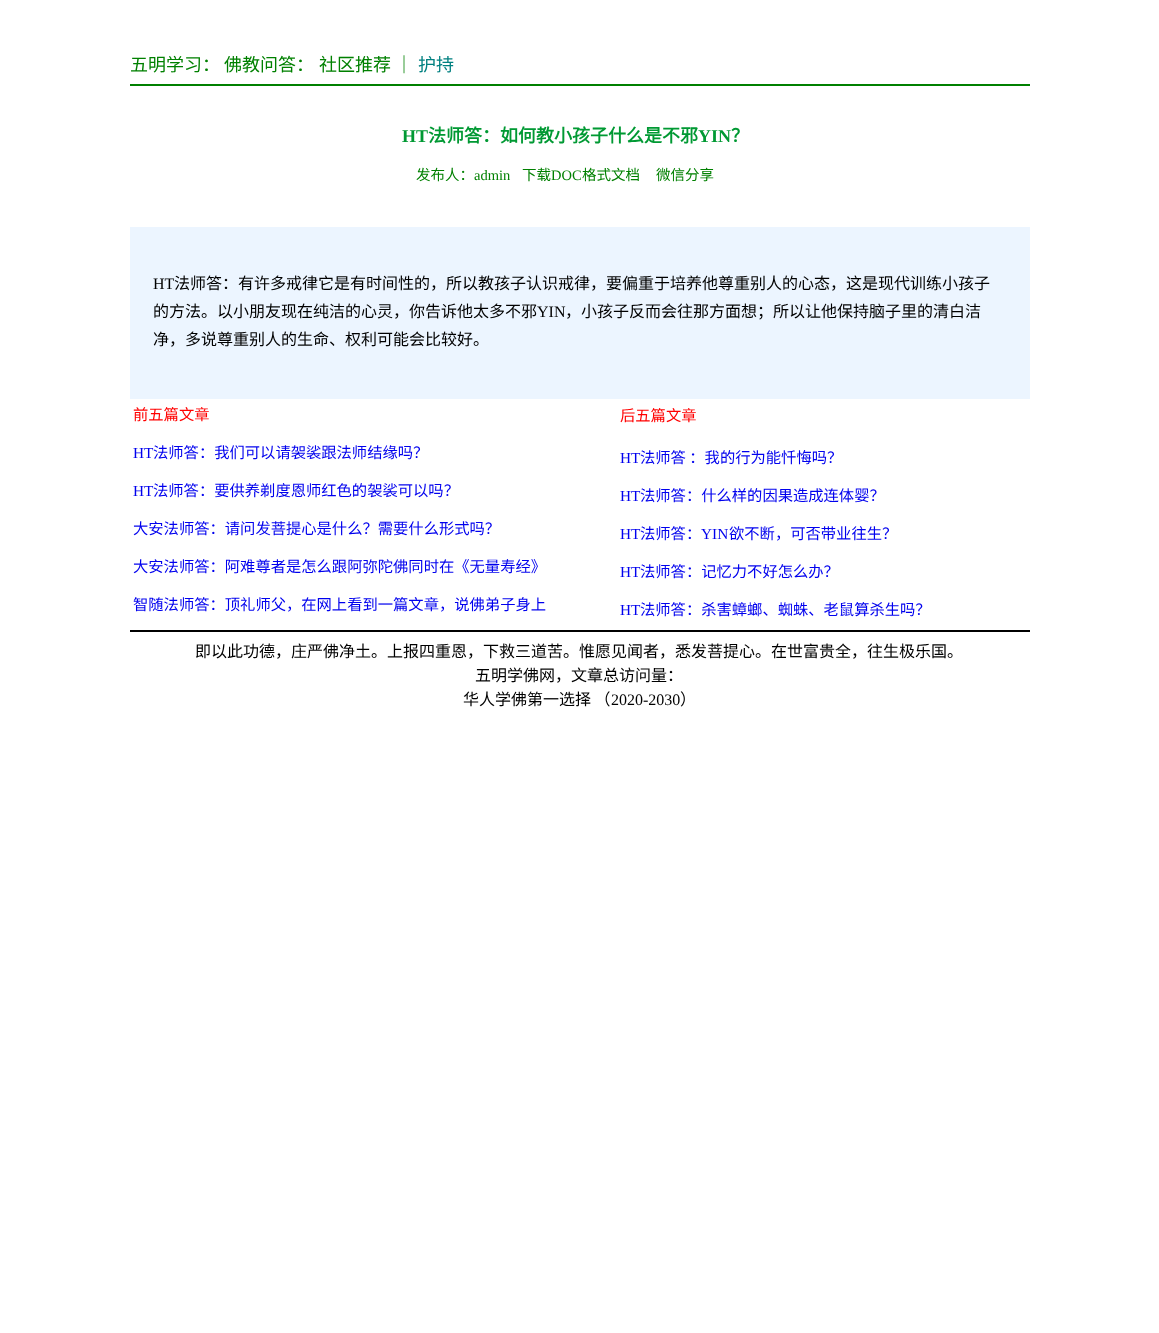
<?xml version="1.0" encoding="UTF-8"?>
<svg xmlns="http://www.w3.org/2000/svg" width="1159" height="1333">
    <rect width="100%" height="100%" fill="#FFFFFF"/>
    <text x="130" y="71" font-family="Noto Sans CJK SC" font-size="18" fill="#008000">五明学习：</text>
    <text x="224" y="71" font-family="Noto Sans CJK SC" font-size="18" fill="#008000">佛教问答：</text>
    <text x="319" y="71" font-family="Noto Sans CJK SC" font-size="18" fill="#008000">社区推荐</text>
    <text x="395" y="71" font-family="Noto Sans CJK SC" font-size="18" fill="#008000">｜</text>
    <text x="418" y="71" font-family="Noto Sans CJK SC" font-size="18" fill="#008080">护持</text>
    <rect x="130" y="84" width="900" height="2" fill="#008000"/>
    <text x="402" y="142" font-family="Liberation Serif" font-size="18" font-weight="700" fill="#009933">HT</text>
    <text x="428" y="142" font-family="Noto Sans CJK SC" font-size="18" font-weight="700" fill="#009933">法师答：如何教小孩子什么是不邪</text>
    <text x="698" y="142" font-family="Liberation Serif" font-size="18" font-weight="700" fill="#009933">YIN</text>
    <text x="731" y="142" font-family="Noto Sans CJK SC" font-size="18" font-weight="700" fill="#009933">？</text>
    <text x="416" y="180" font-family="Noto Sans CJK SC" font-size="14.5" fill="#008000">发布人：</text>
    <text x="474" y="180" font-family="Liberation Serif" font-size="14.5" fill="#008000">admin</text>
    <text x="522" y="180" font-family="Noto Sans CJK SC" font-size="14.5" fill="#008000">下载</text>
    <text x="551" y="180" font-family="Liberation Serif" font-size="14.5" fill="#008000">DOC</text>
    <text x="582" y="180" font-family="Noto Sans CJK SC" font-size="14.5" fill="#008000">格式文档</text>
    <text x="656" y="180" font-family="Noto Sans CJK SC" font-size="14.5" fill="#008000">微信分享</text>
    <rect x="130" y="227" width="900" height="172" fill="#ECF5FF"/>
    <text x="153" y="289" font-family="Liberation Serif" font-size="16" fill="#000000">HT</text>
    <text x="174" y="289" font-family="Noto Sans CJK SC" font-size="16" fill="#000000">法师答：有许多戒律它是有时间性的，所以教孩子认识戒律，要偏重于培养他尊重别人的心态，这是现代训练小孩子</text>
    <text x="153" y="317" font-family="Noto Sans CJK SC" font-size="16" fill="#000000">的方法。以小朋友现在纯洁的心灵，你告诉他太多不邪</text>
    <text x="537" y="317" font-family="Liberation Serif" font-size="16" fill="#000000">YIN</text>
    <text x="565" y="317" font-family="Noto Sans CJK SC" font-size="16" fill="#000000">，小孩子反而会往那方面想；所以让他保持脑子里的清白洁</text>
    <text x="153" y="345" font-family="Noto Sans CJK SC" font-size="16" fill="#000000">净，多说尊重别人的生命、权利可能会比较好。</text>
    <text x="133" y="420" font-family="Noto Sans CJK SC" font-size="15.3" fill="#FF0000">前五篇文章</text>
    <text x="133" y="458" font-family="Liberation Serif" font-size="15.3" fill="#0000EE">HT</text>
    <text x="153" y="458" font-family="Noto Sans CJK SC" font-size="15.3" fill="#0000EE">法师答：我们可以请袈裟跟法师结缘吗？</text>
    <text x="133" y="496" font-family="Liberation Serif" font-size="15.3" fill="#0000EE">HT</text>
    <text x="153" y="496" font-family="Noto Sans CJK SC" font-size="15.3" fill="#0000EE">法师答：要供养剃度恩师红色的袈裟可以吗？</text>
    <text x="133" y="534" font-family="Noto Sans CJK SC" font-size="15.3" fill="#0000EE">大安法师答：请问发菩提心是什么？需要什么形式吗？</text>
    <text x="133" y="572" font-family="Noto Sans CJK SC" font-size="15.3" fill="#0000EE">大安法师答：阿难尊者是怎么跟阿弥陀佛同时在《无量寿经》</text>
    <text x="133" y="610" font-family="Noto Sans CJK SC" font-size="15.3" fill="#0000EE">智随法师答：顶礼师父，在网上看到一篇文章，说佛弟子身上</text>
    <text x="620" y="421" font-family="Noto Sans CJK SC" font-size="15.3" fill="#FF0000">后五篇文章</text>
    <text x="620" y="463" font-family="Liberation Serif" font-size="15.3" fill="#0000EE">HT</text>
    <text x="640" y="463" font-family="Noto Sans CJK SC" font-size="15.3" fill="#0000EE">法师答 ：我的行为能忏悔吗？</text>
    <text x="620" y="501" font-family="Liberation Serif" font-size="15.3" fill="#0000EE">HT</text>
    <text x="640" y="501" font-family="Noto Sans CJK SC" font-size="15.3" fill="#0000EE">法师答：什么样的因果造成连体婴？</text>
    <text x="620" y="539" font-family="Liberation Serif" font-size="15.3" fill="#0000EE">HT</text>
    <text x="640" y="539" font-family="Noto Sans CJK SC" font-size="15.3" fill="#0000EE">法师答：</text>
    <text x="701" y="539" font-family="Liberation Serif" font-size="15.3" fill="#0000EE">YIN</text>
    <text x="729" y="539" font-family="Noto Sans CJK SC" font-size="15.3" fill="#0000EE">欲不断，可否带业往生？</text>
    <text x="620" y="577" font-family="Liberation Serif" font-size="15.3" fill="#0000EE">HT</text>
    <text x="640" y="577" font-family="Noto Sans CJK SC" font-size="15.3" fill="#0000EE">法师答：记忆力不好怎么办？</text>
    <text x="620" y="615" font-family="Liberation Serif" font-size="15.3" fill="#0000EE">HT</text>
    <text x="640" y="615" font-family="Noto Sans CJK SC" font-size="15.3" fill="#0000EE">法师答：杀害蟑螂、蜘蛛、老鼠算杀生吗？</text>
    <rect x="130" y="630" width="900" height="2" fill="#000000"/>
    <text x="195" y="657" font-family="Noto Sans CJK SC" font-size="16" fill="#000000">即以此功德，庄严佛净土。上报四重恩，下救三道苦。惟愿见闻者，悉发菩提心。在世富贵全，往生极乐国。</text>
    <text x="475" y="681" font-family="Noto Sans CJK SC" font-size="16" fill="#000000">五明学佛网，文章总访问量：</text>
    <text x="463" y="705" font-family="Noto Sans CJK SC" font-size="16" fill="#000000">华人学佛第一选择 （</text>
    <text x="611" y="705" font-family="Liberation Serif" font-size="16" fill="#000000">2020-2030</text>
    <text x="680" y="705" font-family="Noto Sans CJK SC" font-size="16" fill="#000000">）</text>
</svg>
